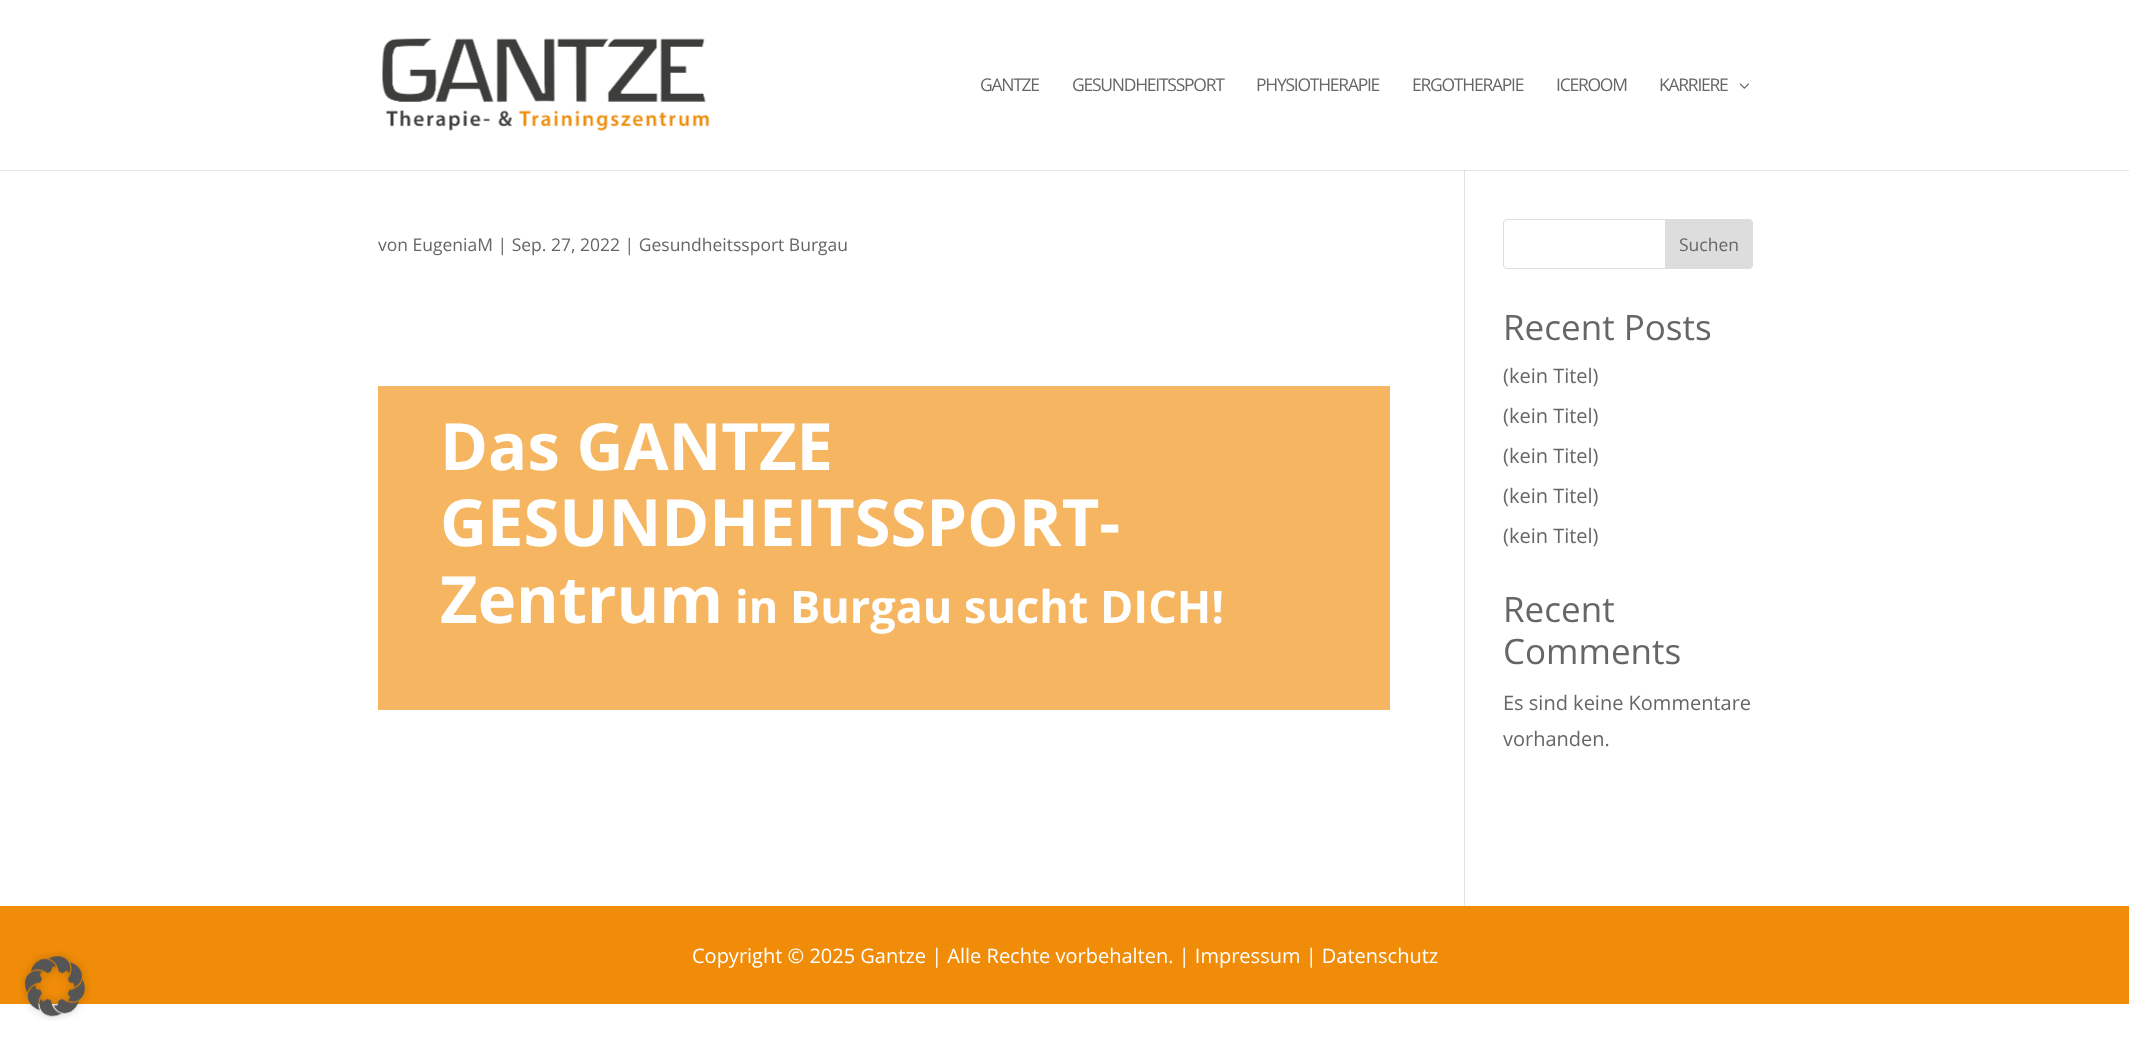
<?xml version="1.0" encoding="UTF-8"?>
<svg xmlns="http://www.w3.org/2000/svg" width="2129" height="1041">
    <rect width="100%" height="100%" fill="#FFFFFF"/>
    <rect x="0" y="170" width="2129" height="1" fill="#E6E6E6"/>
    <image x="382" y="38" width="328" height="93" href="img_01.png"/>
    <text x="980" y="91" font-family="Open Sans" font-size="17.5" letter-spacing="-1.25" fill="#666666">GANTZE</text>
    <text x="1072" y="91" font-family="Open Sans" font-size="17.5" letter-spacing="-1.25" fill="#666666">GESUNDHEITSSPORT</text>
    <text x="1256" y="91" font-family="Open Sans" font-size="17.5" letter-spacing="-1.25" fill="#666666">PHYSIOTHERAPIE</text>
    <text x="1412" y="91" font-family="Open Sans" font-size="17.5" letter-spacing="-1.25" fill="#666666">ERGOTHERAPIE</text>
    <text x="1556" y="91" font-family="Open Sans" font-size="17.5" letter-spacing="-1.25" fill="#666666">ICEROOM</text>
    <text x="1659" y="91" font-family="Open Sans" font-size="17.5" letter-spacing="-1.25" fill="#666666">KARRIERE</text>
    <image x="1739" y="83" width="10" height="6" href="img_02.png"/>
    <rect x="1464" y="171" width="1" height="735" fill="#E2E2E2"/>
    <rect x="1464" y="170" width="1" height="1" fill="#CBCBCB"/>
    <text x="378" y="251" font-family="Open Sans" font-size="17.5" fill="#666666">von EugeniaM | Sep. 27, 2022 | Gesundheitssport Burgau</text>
    <rect x="378" y="386" width="1012" height="324" fill="#F6B661"/>
    <text font-family="Open Sans" font-size="65" font-weight="700" fill="#FFFFFF">
        <tspan x="440" y="470">Das GANTZE</tspan>
        <tspan x="440" y="546">GESUNDHEITSSPORT-</tspan>
        <tspan x="440" y="623">Zentrum</tspan>
    </text>
    <text x="735" y="623" font-family="Open Sans" font-size="45" font-weight="700" fill="#FFFFFF">in Burgau sucht DICH!</text>
    <rect x="1503.5" y="219.5" width="249" height="49" rx="3.5" fill="none" stroke="#DDDDDD"/>
    <path d="M 1665.5 219.5 H 1749 C 1751 219.5 1752.5 221 1752.5 223 V 265 C 1752.5 267 1751 268.5 1749 268.5 H 1665.5 Z" fill="#DDDDDD" stroke="#DDDDDD"/>
    <text x="1679" y="251" font-family="Open Sans" font-size="17.5" fill="#666666">Suchen</text>
    <text x="1503" y="340" font-family="Open Sans" font-size="35" fill="#666666">Recent Posts</text>
    <text x="1503" y="383" font-family="Open Sans" font-size="20" fill="#666666">(kein Titel)</text>
    <text x="1503" y="423" font-family="Open Sans" font-size="20" fill="#666666">(kein Titel)</text>
    <text x="1503" y="463" font-family="Open Sans" font-size="20" fill="#666666">(kein Titel)</text>
    <text x="1503" y="503" font-family="Open Sans" font-size="20" fill="#666666">(kein Titel)</text>
    <text x="1503" y="543" font-family="Open Sans" font-size="20" fill="#666666">(kein Titel)</text>
    <text font-family="Open Sans" font-size="35" fill="#666666">
        <tspan x="1503" y="622">Recent</tspan>
        <tspan x="1503" y="664">Comments</tspan>
    </text>
    <text font-family="Open Sans" font-size="20" fill="#666666">
        <tspan x="1503" y="710">Es sind keine Kommentare</tspan>
        <tspan x="1503" y="746">vorhanden.</tspan>
    </text>
    <rect x="0" y="906" width="2129" height="98" fill="#F08C08"/>
    <text x="692" y="963" font-family="Open Sans" font-size="20" fill="#FFFFFF">Copyright © 2025 Gantze | Alle Rechte vorbehalten. | Impressum | Datenschutz</text>
    <image x="20" y="951" width="70" height="70" href="img_03.png"/>
</svg>
